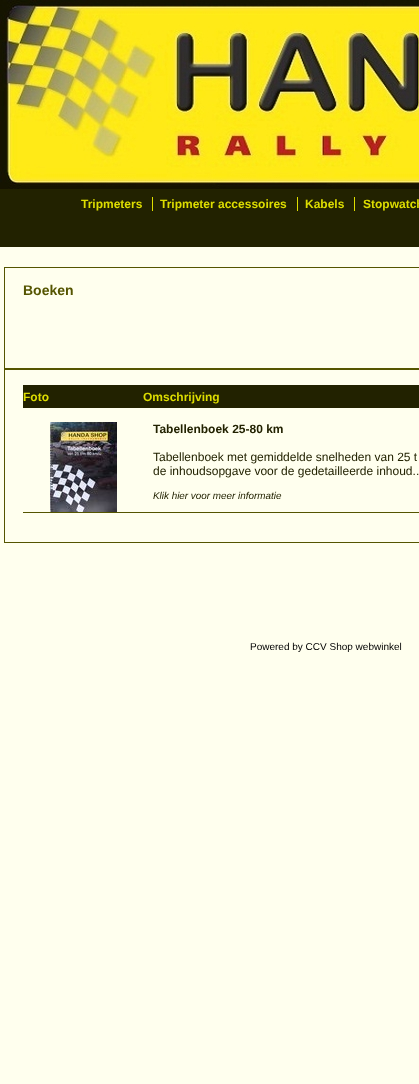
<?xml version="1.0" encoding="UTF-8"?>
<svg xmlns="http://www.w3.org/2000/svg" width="419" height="1084">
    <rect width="100%" height="100%" fill="#FFFFEE"/>
    <image x="0" y="0" width="419" height="189" href="img_01.png"/>
    <rect x="0" y="189" width="419" height="58" fill="#222200"/>
    <text x="81" y="208" font-family="Liberation Sans" font-size="12" font-weight="700" fill="#DDDD00">Tripmeters</text>
    <rect x="152" y="197" width="1" height="14" fill="#DDDD00"/>
    <text x="160" y="208" font-family="Liberation Sans" font-size="12" font-weight="700" fill="#DDDD00">Tripmeter accessoires</text>
    <rect x="297" y="197" width="1" height="14" fill="#DDDD00"/>
    <text x="305" y="208" font-family="Liberation Sans" font-size="12" font-weight="700" fill="#DDDD00">Kabels</text>
    <rect x="354" y="197" width="1" height="14" fill="#DDDD00"/>
    <text x="363" y="208" font-family="Liberation Sans" font-size="12" font-weight="700" fill="#DDDD00">Stopwatch</text>
    <rect x="4.5" y="267.5" width="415" height="101" fill="none" stroke="#555500"/>
    <text x="23" y="295" font-family="Liberation Sans" font-size="14" font-weight="700" fill="#555500">Boeken</text>
    <rect x="4.5" y="369.5" width="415" height="173" fill="none" stroke="#555500"/>
    <rect x="23" y="385" width="396" height="23" fill="#222200"/>
    <text x="23" y="401" font-family="Liberation Sans" font-size="12" font-weight="700" fill="#DDDD00">Foto</text>
    <text x="143" y="401" font-family="Liberation Sans" font-size="12" font-weight="700" fill="#DDDD00">Omschrijving</text>
    <image x="50" y="422" width="67" height="90" href="img_02.png"/>
    <text x="153" y="433" font-family="Liberation Sans" font-size="12" font-weight="700" fill="#222200">Tabellenboek 25-80 km</text>
    <text font-family="Liberation Sans" font-size="12" fill="#222200">
        <tspan x="153" y="461">Tabellenboek met gemiddelde snelheden van 25 t</tspan>
        <tspan x="153" y="475">de inhoudsopgave voor de gedetailleerde inhoud..</tspan>
    </text>
    <text x="153" y="499" font-family="Liberation Sans" font-size="9.9" font-style="italic" fill="#222200">Klik hier voor meer informatie</text>
    <rect x="23" y="512" width="396" height="1" fill="#555500"/>
    <text x="250" y="650" font-family="Liberation Sans" font-size="10" fill="#000000">Powered by CCV Shop webwinkel</text>
</svg>
